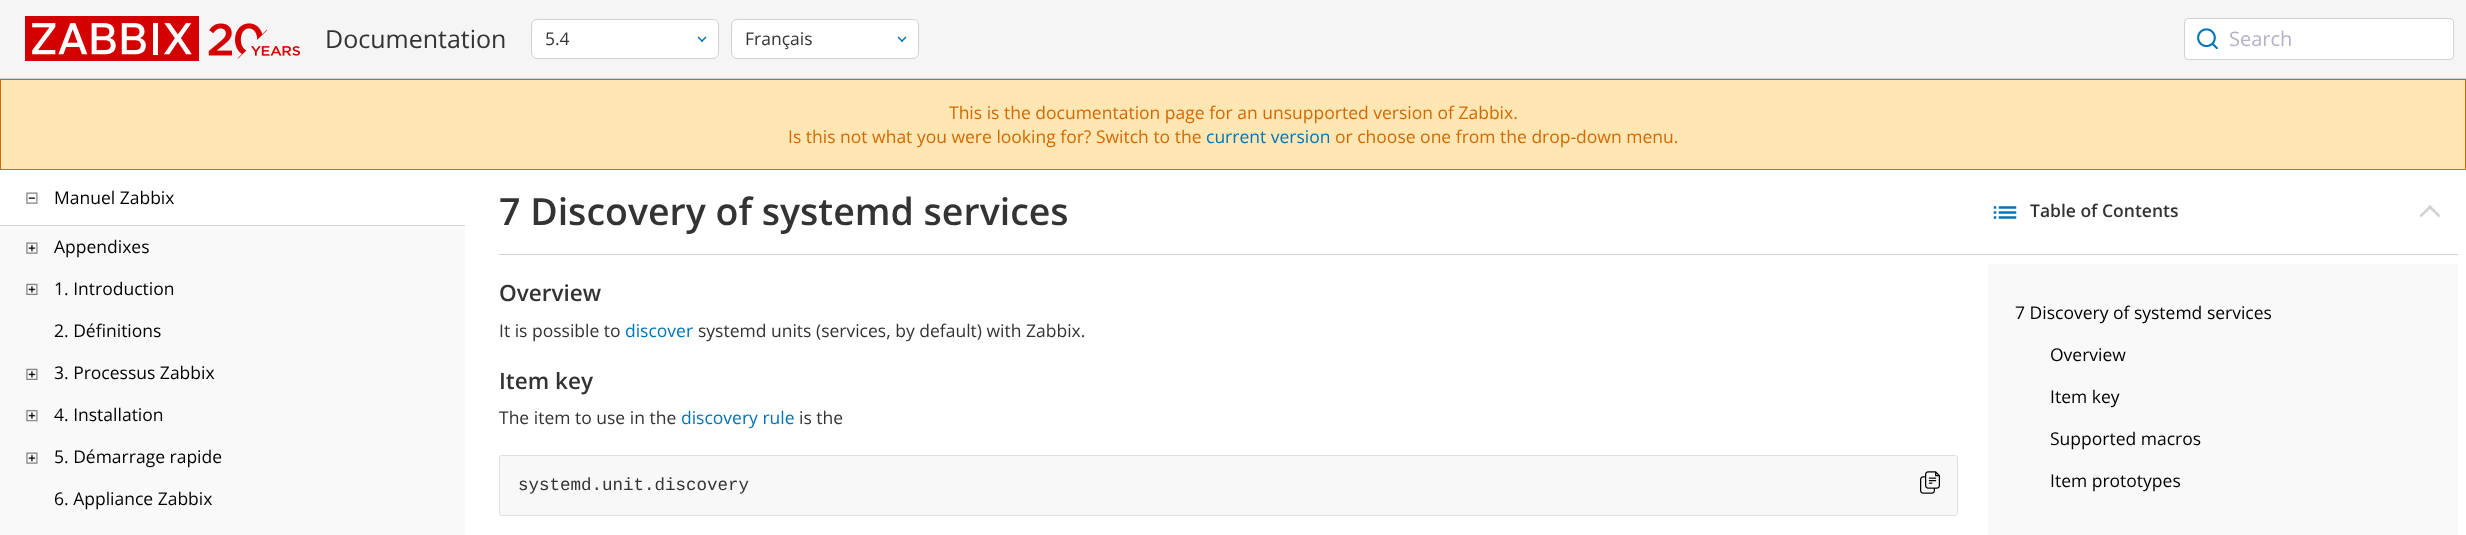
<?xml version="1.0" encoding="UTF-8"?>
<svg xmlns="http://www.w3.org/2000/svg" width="2466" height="535">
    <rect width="100%" height="100%" fill="#FFFFFF"/>
    <rect x="0" y="0" width="2466" height="78" fill="#F5F5F5"/>
    <rect x="0" y="78" width="2466" height="1" fill="#D2D2D2"/>
    <image x="25" y="16" width="275" height="45" href="img_01.png"/>
    <text x="325" y="48" font-family="Open Sans" font-size="25" fill="#333333">Documentation</text>
    <rect x="531.5" y="19.5" width="187" height="39" rx="5.5" fill="#FFFFFF" stroke="#D2D2D2"/>
    <text x="545" y="45" font-family="Open Sans" font-size="17.5" fill="#333333">5.4</text>
    <path d="M 706.5 37.5 L 702 42 L 701 41 L 705.5 36.5 Z" fill="#0174B7"/>
    <path d="M 703 41 L 702 42 L 697.5 37.5 L 698.5 36.5 Z" fill="#0174B7"/>
    <rect x="731.5" y="19.5" width="187" height="39" rx="5.5" fill="#FFFFFF" stroke="#D2D2D2"/>
    <text x="745" y="45" font-family="Open Sans" font-size="17.5" fill="#333333">Français</text>
    <path d="M 906.5 37.5 L 902 42 L 901 41 L 905.5 36.5 Z" fill="#0174B7"/>
    <path d="M 903 41 L 902 42 L 897.5 37.5 L 898.5 36.5 Z" fill="#0174B7"/>
    <rect x="2184.5" y="18.5" width="269" height="41" rx="3.5" fill="#FFFFFF" stroke="#D2D2D2"/>
    <image x="2197" y="28" width="21" height="22" href="img_02.png"/>
    <text x="2229" y="46" font-family="Open Sans" font-size="20" fill="#B3B2C8">Search</text>
    <rect x="0.5" y="79.5" width="2465" height="90" fill="#FFE6B3" stroke="#D56900"/>
    <text x="949" y="119" font-family="Open Sans" font-size="17.5" fill="#D56900">This is the documentation page for an unsupported version of Zabbix.</text>
    <text x="788" y="143" font-family="Open Sans" font-size="17.5" fill="#D56900">Is this not what you were looking for? Switch to the</text>
    <text x="1206" y="143" font-family="Open Sans" font-size="17.5" fill="#0174B7">current version</text>
    <text x="1335" y="143" font-family="Open Sans" font-size="17.5" fill="#D56900">or choose one from the drop-down menu.</text>
    <rect x="0" y="225" width="465" height="1" fill="#D2D2D2"/>
    <image x="26" y="192" width="12" height="12" href="img_03.png"/>
    <text x="54" y="204" font-family="Open Sans" font-size="17.5" fill="#000000">Manuel Zabbix</text>
    <rect x="0" y="226" width="465" height="309" fill="#F9F9F9"/>
    <image x="26" y="242" width="12" height="12" href="img_04.png"/>
    <text x="54" y="253" font-family="Open Sans" font-size="17.5" fill="#000000">Appendixes</text>
    <image x="26" y="283" width="12" height="12" href="img_05.png"/>
    <text x="54" y="295" font-family="Open Sans" font-size="17.5" fill="#000000">1. Introduction</text>
    <text x="54" y="337" font-family="Open Sans" font-size="17.5" fill="#000000">2. Définitions</text>
    <image x="26" y="368" width="12" height="12" href="img_05.png"/>
    <text x="54" y="379" font-family="Open Sans" font-size="17.5" fill="#000000">3. Processus Zabbix</text>
    <image x="26" y="409" width="12" height="13" href="img_06.png"/>
    <text x="54" y="421" font-family="Open Sans" font-size="17.5" fill="#000000">4. Installation</text>
    <image x="26" y="452" width="12" height="12" href="img_04.png"/>
    <text x="54" y="463" font-family="Open Sans" font-size="17.5" fill="#000000">5. Démarrage rapide</text>
    <text x="54" y="505" font-family="Open Sans" font-size="17.5" fill="#000000">6. Appliance Zabbix</text>
    <text x="499" y="225" font-family="Open Sans" font-size="37.5" font-weight="600" fill="#333333">7 Discovery of systemd services</text>
    <rect x="499" y="254" width="1959" height="1" fill="#D2D2D2"/>
    <image x="1993" y="206" width="24" height="13" href="img_07.png"/>
    <text x="2030" y="217" font-family="Open Sans" font-size="17.5" font-weight="600" fill="#333333">Table of Contents</text>
    <path d="M 2419.5 215.5 L 2430 205 L 2432 207 L 2421 217.5 Z" fill="#D2D2D2"/>
    <path d="M 2428 207 L 2430 205 L 2440.5 215.5 L 2439 217.5 Z" fill="#D2D2D2"/>
    <rect x="1988" y="264" width="470" height="271" fill="#F9F9F9"/>
    <text x="2015" y="319" font-family="Open Sans" font-size="17.5" fill="#000000">7 Discovery of systemd services</text>
    <text x="2050" y="361" font-family="Open Sans" font-size="17.5" fill="#000000">Overview</text>
    <text x="2050" y="403" font-family="Open Sans" font-size="17.5" fill="#000000">Item key</text>
    <text x="2050" y="445" font-family="Open Sans" font-size="17.5" fill="#000000">Supported macros</text>
    <text x="2050" y="487" font-family="Open Sans" font-size="17.5" fill="#000000">Item prototypes</text>
    <text x="499" y="301" font-family="Open Sans" font-size="22.5" font-weight="600" fill="#333333">Overview</text>
    <text x="499" y="337" font-family="Open Sans" font-size="17.5" fill="#333333">It is possible to</text>
    <text x="625" y="337" font-family="Open Sans" font-size="17.5" fill="#0174B7">discover</text>
    <text x="698" y="337" font-family="Open Sans" font-size="17.5" fill="#333333">systemd units (services, by default) with Zabbix.</text>
    <text x="499" y="389" font-family="Open Sans" font-size="22.5" font-weight="600" fill="#333333">Item key</text>
    <text x="499" y="424" font-family="Open Sans" font-size="17.5" fill="#333333">The item to use in the</text>
    <text x="681" y="424" font-family="Open Sans" font-size="17.5" fill="#0174B7">discovery rule</text>
    <text x="799" y="424" font-family="Open Sans" font-size="17.5" fill="#333333">is the</text>
    <rect x="499.5" y="455.5" width="1458" height="60" rx="2" fill="#F8F8F8" stroke="#E0E0E0"/>
    <text x="518" y="490" font-family="Liberation Mono" font-size="17.5" fill="#333333">systemd.unit.discovery</text>
    <image x="1920" y="471" width="20" height="23" href="img_08.png"/>
</svg>
